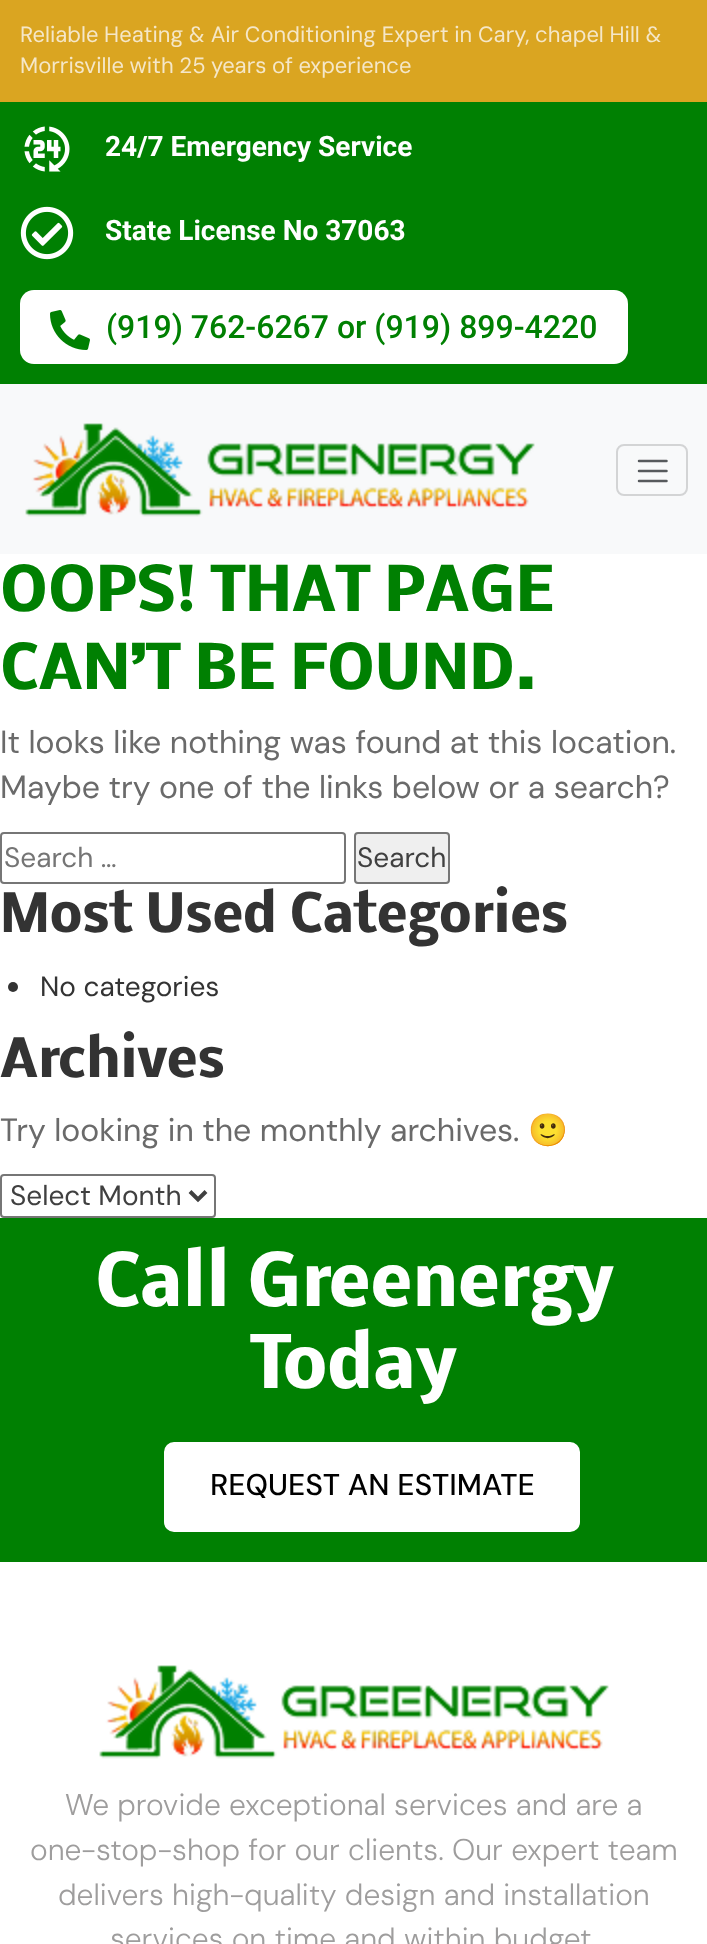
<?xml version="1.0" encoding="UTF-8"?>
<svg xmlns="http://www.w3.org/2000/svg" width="707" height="1944">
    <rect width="100%" height="100%" fill="#FFFFFF"/>
    <rect x="0" y="0" width="707" height="102" fill="#DAA521"/>
    <text font-family="DM Sans" font-size="22" fill="#F5E7C8">
        <tspan x="20" y="42" word-spacing="-0.25">Reliable Heating &amp; Air Conditioning Expert in Cary, chapel Hill &amp;</tspan>
        <tspan x="20" y="73" word-spacing="-0.5">Morrisville with 25 years of experience</tspan>
    </text>
    <rect x="0" y="102" width="707" height="282" fill="#008002"/>
    <image x="24" y="126" width="46" height="46" href="img_01.png"/>
    <text x="105" y="156" font-family="Roboto" font-size="28" font-weight="700" fill="#FFFFFF">24/7 Emergency Service</text>
    <image x="20" y="206" width="54" height="54" href="img_02.png"/>
    <text x="105" y="240" font-family="Roboto" font-size="28" font-weight="700" fill="#FFFFFF">State License No 37063</text>
    <rect x="20" y="290" width="608" height="74" rx="14" fill="#FFFFFF"/>
    <image x="50" y="310" width="40" height="40" href="img_03.png"/>
    <text x="106" y="338" font-family="Roboto" font-size="32" font-weight="500" fill="#008002">(919) 762-6267 or (919) 899-4220</text>
    <rect x="0" y="384" width="707" height="170" fill="#F8F9FA"/>
    <image x="25" y="423" width="510" height="94" href="img_04.png"/>
    <rect x="617" y="445" width="70" height="50" rx="7" fill="none" stroke="#D3D4D5" stroke-width="2"/>
    <path d="M 639 461 H 666.5 M 639 471 H 666.5 M 639 481 H 666.5" fill="none" stroke="#575A5D" stroke-width="2.5" stroke-linecap="round"/>
    <text font-family="Nobile" font-size="58" font-weight="700" fill="#008002">
        <tspan x="0" y="611">OOPS! THAT PAGE</tspan>
        <tspan x="0" y="689">CAN’T BE FOUND.</tspan>
    </text>
    <text font-family="'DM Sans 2'" font-size="32" fill="#6A6A6A">
        <tspan x="0" y="753">It looks like nothing was found at this location.</tspan>
        <tspan x="0" y="798">Maybe try one of the links below or a search?</tspan>
    </text>
    <rect x="1" y="833" width="344" height="50" rx="3" fill="none" stroke="#767676" stroke-width="2"/>
    <text x="4" y="867" font-family="'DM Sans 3'" font-size="28" fill="#757575">Search …</text>
    <rect x="355" y="833" width="94" height="50" rx="3" fill="#EFEFEF" stroke="#767676" stroke-width="2"/>
    <text x="357" y="867" font-family="'DM Sans 3'" font-size="28" fill="#404040">Search</text>
    <text x="0" y="932" font-family="Nobile" font-size="50" font-weight="700" fill="#333333">Most Used Categories</text>
    <circle cx="13" cy="987" r="5" fill="#333333"/>
    <text x="40" y="996" font-family="'DM Sans 3'" font-size="28" fill="#333333">No categories</text>
    <text x="0" y="1077" font-family="Nobile" font-size="50" font-weight="700" fill="#333333">Archives</text>
    <text x="0" y="1141" font-family="'DM Sans 2'" font-size="32" fill="#6A6A6A">Try looking in the monthly archives.</text>
    <text x="528" y="1141" font-family="Noto Color Emoji" font-size="32" fill="#6A6A6A">🙂</text>
    <rect x="1" y="1175" width="214" height="42" rx="3" fill="none" stroke="#767676" stroke-width="2"/>
    <path d="M 190 1191.5 L 198 1199.5 L 206 1191.5" fill="none" stroke="#404040" stroke-width="4"/>
    <text x="10" y="1205" font-family="'DM Sans 3'" font-size="28" fill="#404040">Select Month</text>
    <rect x="0" y="1218" width="707" height="344" fill="#008002"/>
    <text x="95" y="1306" font-family="Nobile" font-size="68" font-weight="700" fill="#FFFFFF">Call Greenergy</text>
    <text x="251" y="1388" font-family="Nobile" font-size="68" font-weight="700" fill="#FFFFFF">Today</text>
    <rect x="165" y="1443" width="414" height="88" rx="9" fill="#FFFFFF" stroke="#FFFFFF" stroke-width="2"/>
    <text x="210" y="1495" font-family="DM Sans" font-size="30" font-weight="500" fill="#000000">REQUEST AN ESTIMATE</text>
    <image x="99" y="1665" width="510" height="94" href="img_05.png"/>
    <text x="65" y="1815" font-family="DM Sans" font-size="30" font-weight="300" fill="#9E9D9D">We provide exceptional services and are a</text>
    <text x="30" y="1860" font-family="DM Sans" font-size="30" font-weight="300" fill="#9E9D9D">one-stop-shop for our clients. Our expert team</text>
    <text x="58" y="1905" font-family="DM Sans" font-size="30" font-weight="300" fill="#9E9D9D">delivers high-quality design and installation</text>
    <text x="110" y="1949" font-family="DM Sans" font-size="30" font-weight="300" fill="#9E9D9D">services on time and within budget</text>
</svg>
